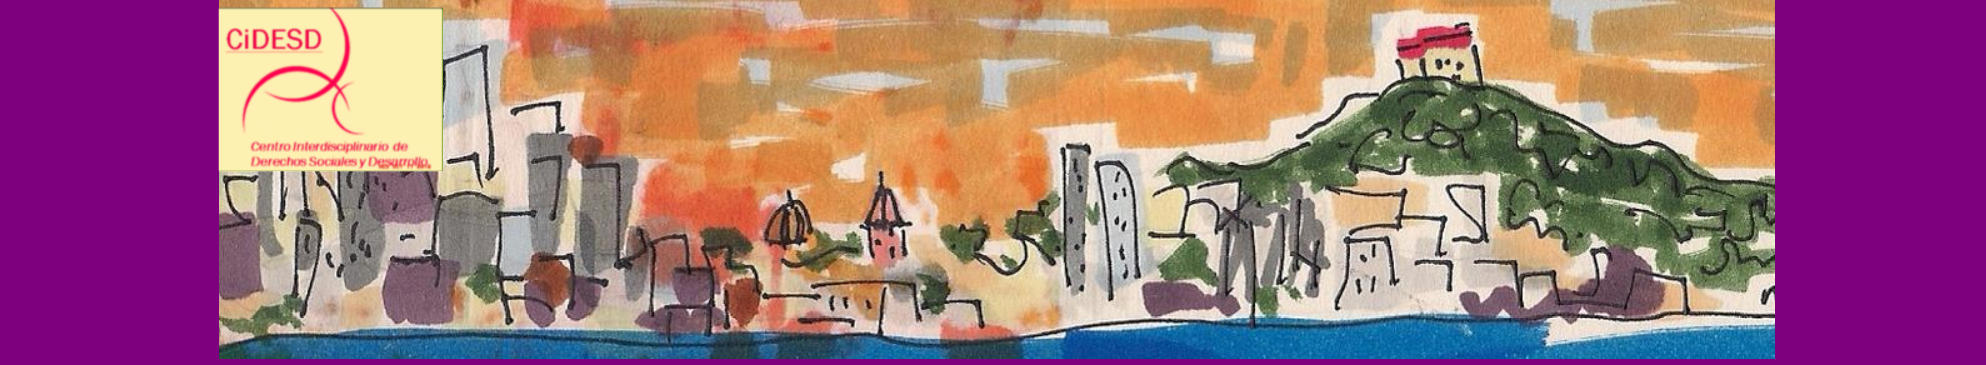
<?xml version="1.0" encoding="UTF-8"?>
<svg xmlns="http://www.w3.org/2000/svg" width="1986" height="365">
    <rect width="100%" height="100%" fill="#7F007F"/>
    <image x="219" y="0" width="1556" height="359" href="img_01.png"/>
    <rect x="219" y="8" width="224" height="163" fill="#3F7F00" fill-opacity="0.99"/>
    <image x="218" y="7" width="225" height="165" href="img_02.png"/>
</svg>
